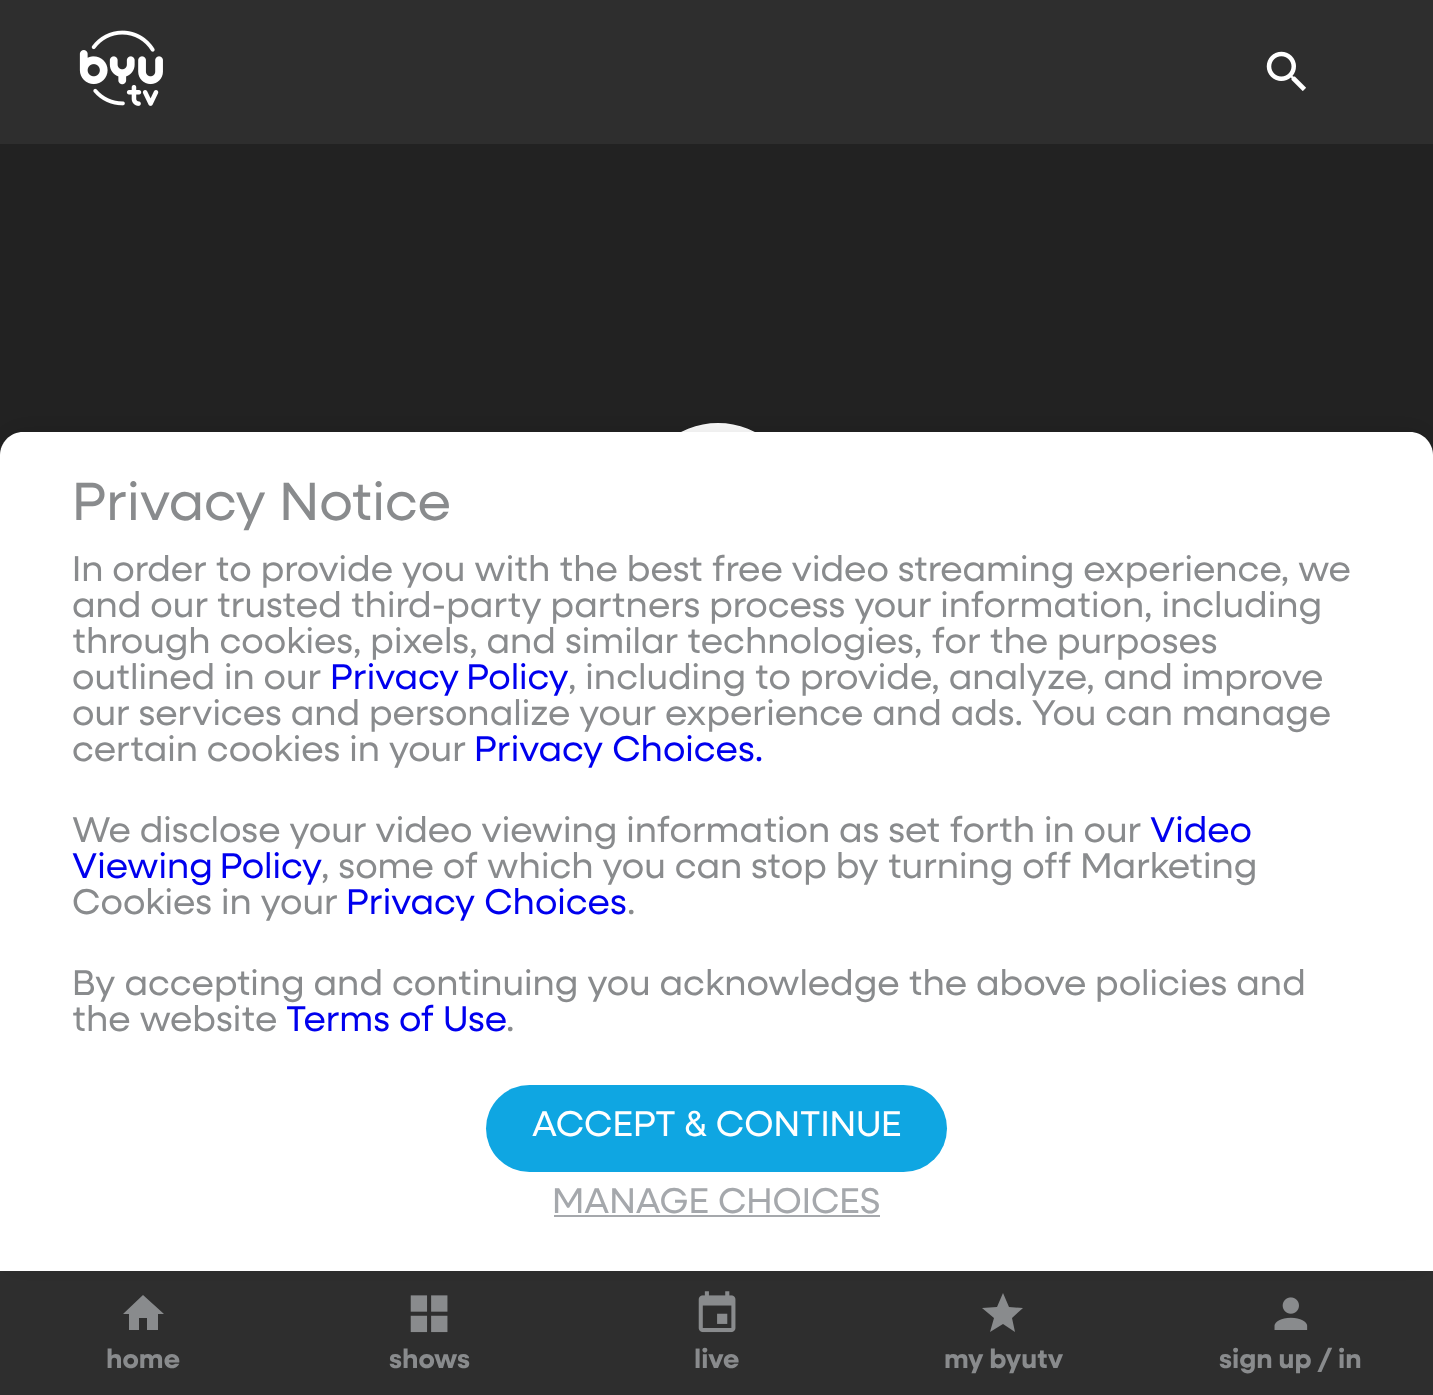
<?xml version="1.0" encoding="UTF-8"?>
<svg xmlns="http://www.w3.org/2000/svg" width="1433" height="1395">
    <defs>
        <filter id="blur1" x="-50%" y="-200%" width="200%" height="500%"><feGaussianBlur stdDeviation="11"/></filter>
    </defs>
    <rect width="100%" height="100%" fill="#222222"/>
    <rect x="0" y="0" width="1433" height="144" fill="#2E2E2E"/>
    <image x="79" y="30" width="84" height="76" href="img_01.png"/>
    <image x="1266" y="51" width="40" height="40" href="img_02.png"/>
    <rect x="639.5" y="425.5" width="157" height="159" rx="78.5" fill="#FFFFFF" stroke="#FFFFFF" stroke-width="5"/>
    <rect x="0" y="1271" width="1433" height="124" fill="#2E2E2E"/>
    <path d="M 139 1330 V 1318 H 147 V 1330 H 158 V 1314 H 164 L 143 1295 L 123 1314 H 129 V 1330 Z" fill="#898B8D"/>
    <image x="410" y="1295" width="38" height="38" href="img_03.png"/>
    <image x="698" y="1291" width="38" height="42" href="img_04.png"/>
    <path d="M 1003 1324 L 1015 1332 L 1012 1318 L 1023 1308 L 1009 1307 L 1003 1293 L 997 1307 L 982 1308 L 994 1318 L 990 1332 Z" fill="#898B8D"/>
    <image x="1274" y="1297" width="34" height="33" href="img_05.png"/>
    <rect x="0" y="428" width="1433" height="839" rx="23" fill="#000000" fill-opacity="0.1" filter="url(#blur1)"/>
    <path d="M 23 432 H 1410 C 1422.5 432 1433 442.5 1433 455 V 1271 H 0 V 455 C 0 442.5 10.5 432 23 432 Z" fill="#FFFFFF"/>
    <text x="72" y="520" font-family="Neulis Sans" font-size="54" fill="#898B8D">Privacy Notice</text>
    <text font-family="Neulis Sans" font-size="36" fill="#898B8D">
        <tspan x="72" y="581">In order to provide you with the best free video streaming experience, we</tspan>
        <tspan x="72" y="617">and our trusted third-party partners process your information, including</tspan>
        <tspan x="72" y="653">through cookies, pixels, and similar technologies, for the purposes</tspan>
        <tspan x="72" y="689">outlined in our</tspan>
    </text>
    <text x="330" y="689" word-spacing="-2" font-family="Neulis Sans" font-size="36" fill="#0000EE">Privacy Policy</text>
    <text x="568" y="689" font-family="Neulis Sans" font-size="36" fill="#898B8D">, including to provide, analyze, and improve</text>
    <text font-family="Neulis Sans" font-size="36" fill="#898B8D">
        <tspan x="72" y="725">our services and personalize your experience and ads. You can manage</tspan>
        <tspan x="72" y="761">certain cookies in your</tspan>
    </text>
    <text x="474" y="761" font-family="Neulis Sans" font-size="36" fill="#0000EE">Privacy Choices.</text>
    <text x="72" y="842" font-family="Neulis Sans" font-size="36" fill="#898B8D">We disclose your video viewing information as set forth in our</text>
    <text x="1150" y="842" font-family="Neulis Sans" font-size="36" fill="#0000EE">Video</text>
    <text x="72" y="878" word-spacing="-2" font-family="Neulis Sans" font-size="36" fill="#0000EE">Viewing Policy</text>
    <text x="321" y="878" font-family="Neulis Sans" font-size="36" fill="#898B8D">, some of which you can stop by turning off Marketing</text>
    <text x="72" y="914" font-family="Neulis Sans" font-size="36" fill="#898B8D">Cookies in your</text>
    <text x="346" y="914" font-family="Neulis Sans" font-size="36" fill="#0000EE">Privacy Choices</text>
    <text x="627" y="914" font-family="Neulis Sans" font-size="36" fill="#898B8D">.</text>
    <text font-family="Neulis Sans" font-size="36" fill="#898B8D">
        <tspan x="72" y="995">By accepting and continuing you acknowledge the above policies and</tspan>
        <tspan x="72" y="1031">the website</tspan>
    </text>
    <text x="286" y="1031" font-family="Neulis Sans" font-size="36" fill="#0000EE">Terms of Use</text>
    <text x="506" y="1031" font-family="Neulis Sans" font-size="36" fill="#898B8D">.</text>
    <rect x="486" y="1085" width="461" height="87" rx="43.5" fill="#0FA6E2"/>
    <text x="532" y="1136" font-family="Neulis Sans" font-size="36" fill="#FFFFFF">ACCEPT &amp; CONTINUE</text>
    <text x="552" y="1213" font-family="Neulis Sans" font-size="36" fill="#A5A8AC">MANAGE CHOICES</text>
    <rect x="554" y="1215" width="326" height="2" fill="#A5A8AC"/>
    <text x="106" y="1368" font-family="Neulis Sans" font-size="27" font-weight="700" fill="#898B8D">home</text>
    <text x="389" y="1368" font-family="Neulis Sans" font-size="27" font-weight="700" fill="#898B8D">shows</text>
    <text x="694" y="1368" font-family="Neulis Sans" font-size="27" font-weight="700" fill="#898B8D">live</text>
    <text x="944" y="1368" font-family="Neulis Sans" font-size="27" font-weight="700" fill="#898B8D">my byutv</text>
    <text x="1219" y="1368" font-family="Neulis Sans" font-size="27" font-weight="700" fill="#898B8D">sign up / in</text>
</svg>
